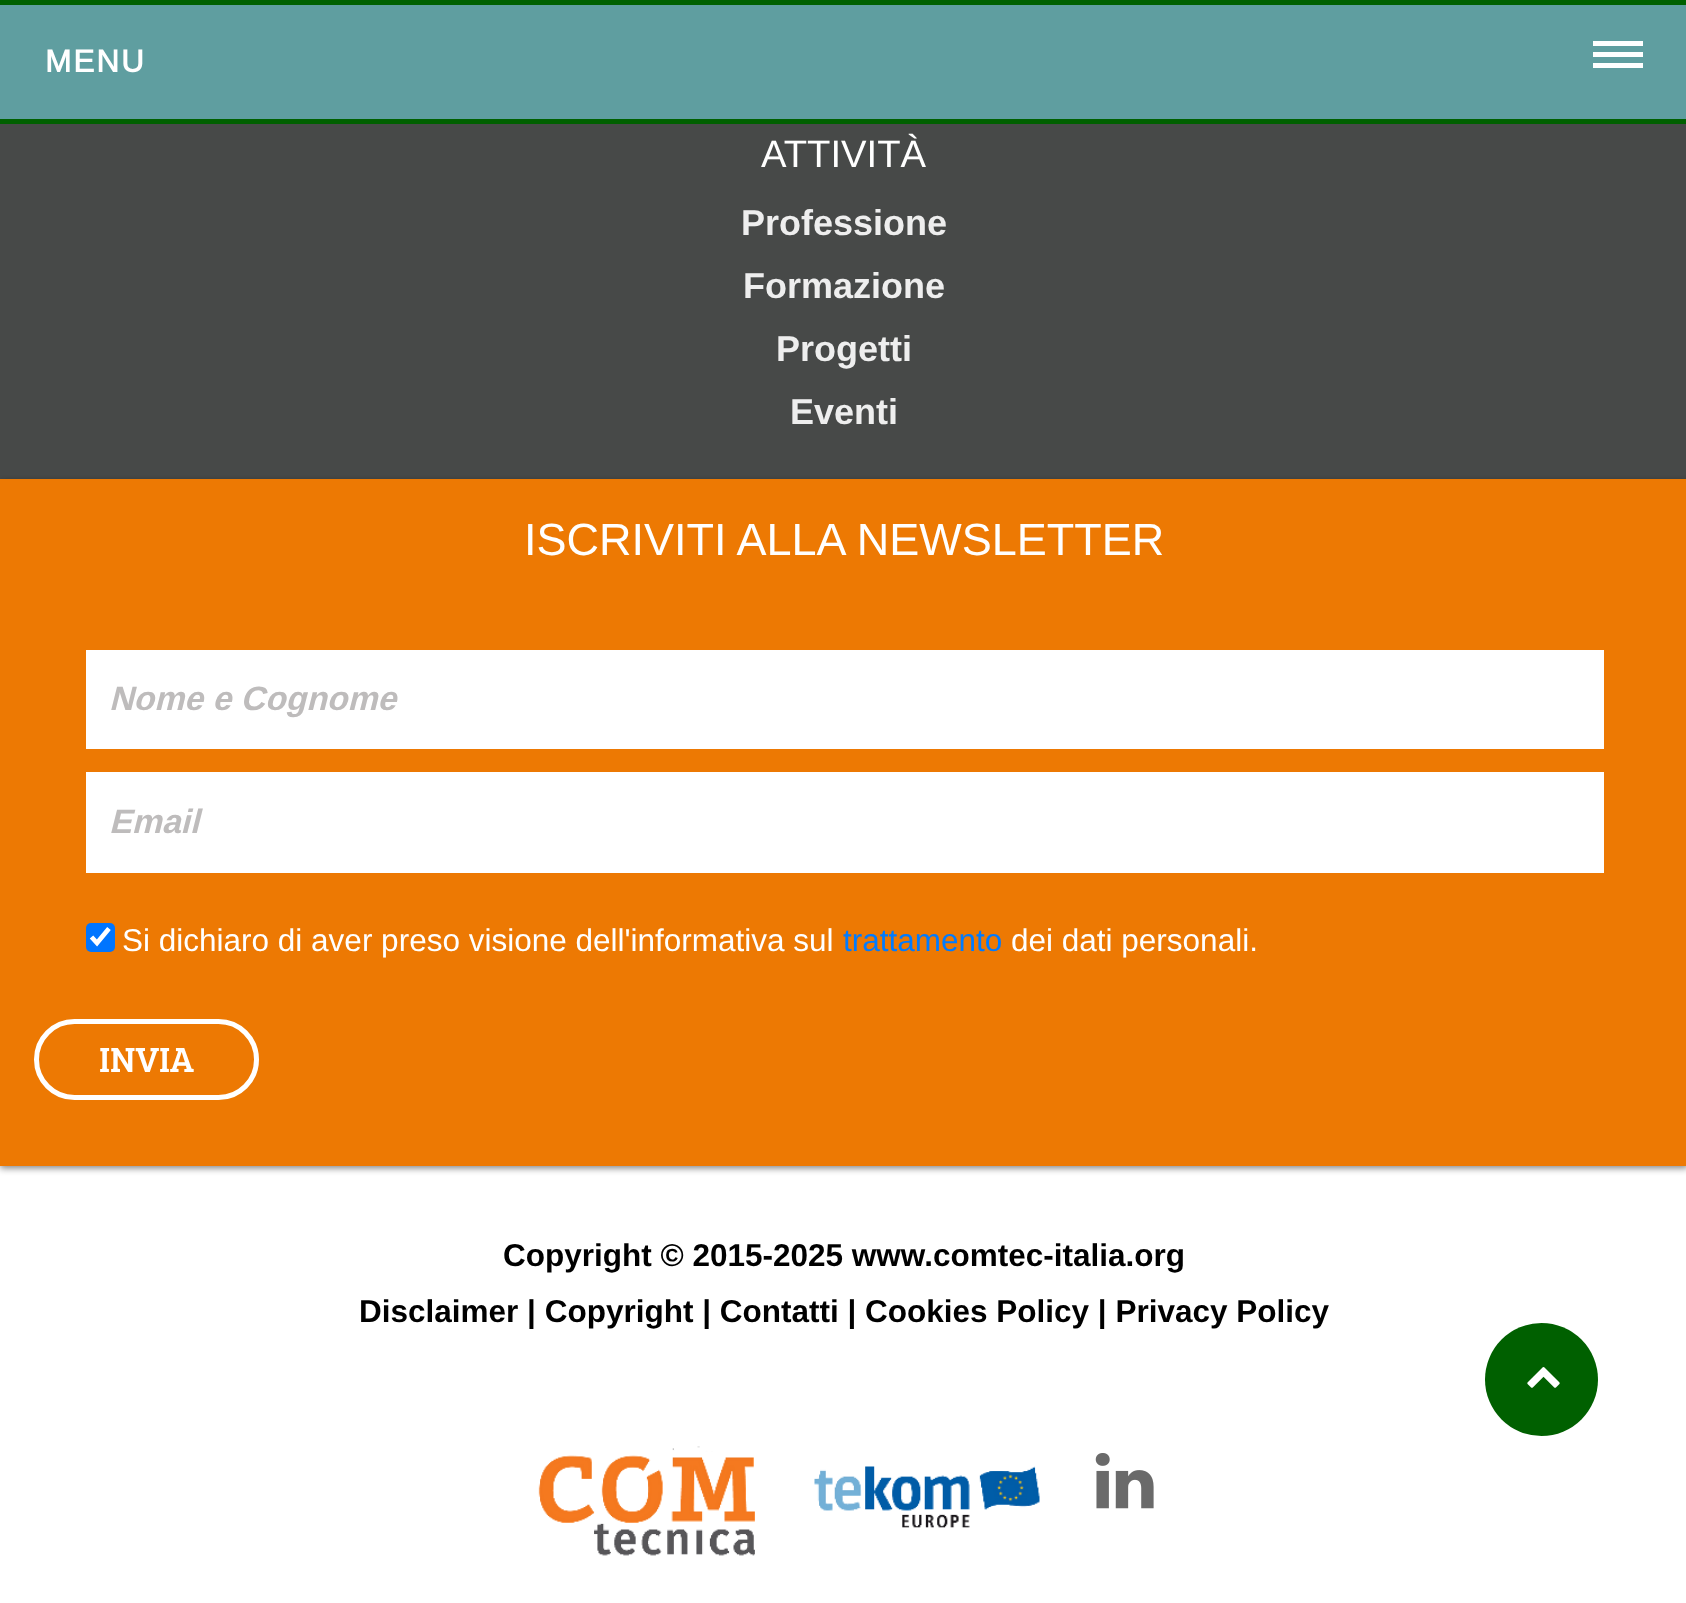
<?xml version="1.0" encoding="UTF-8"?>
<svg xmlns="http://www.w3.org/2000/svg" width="1686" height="1603">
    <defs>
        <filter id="blur1" x="-50%" y="-200%" width="200%" height="500%"><feGaussianBlur stdDeviation="3.5"/></filter>
    </defs>
    <rect width="100%" height="100%" fill="#FFFFFF"/>
    <rect x="0" y="5" width="1686" height="114" fill="#5F9EA0"/>
    <rect x="0" y="0" width="1686" height="5" fill="#006000"/>
    <rect x="0" y="119" width="1686" height="5" fill="#006000"/>
    <text x="45" y="72" font-family="'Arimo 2'" font-size="31.5" font-weight="700" letter-spacing="2" fill="#FFFFFF">MENU</text>
    <rect x="1593" y="41" width="50" height="5" fill="#FFFFFF"/>
    <rect x="1593" y="52" width="50" height="5" fill="#FFFFFF"/>
    <rect x="1593" y="63" width="50" height="5" fill="#FFFFFF"/>
    <rect x="0" y="124" width="1686" height="355" fill="#474948"/>
    <text x="761" y="167" font-family="Arimo" font-size="38.25" fill="#FFFFFF">ATTIVITÀ</text>
    <text x="741" y="235" font-family="Arimo" font-size="36" font-weight="700" fill="#EEEEEE">Professione</text>
    <text x="743" y="298" font-family="Arimo" font-size="36" font-weight="700" fill="#EEEEEE">Formazione</text>
    <text x="776" y="361" font-family="Arimo" font-size="36" font-weight="700" fill="#EEEEEE">Progetti</text>
    <text x="790" y="424" font-family="Arimo" font-size="36" font-weight="700" fill="#EEEEEE">Eventi</text>
    <rect x="0" y="482" width="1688" height="686" fill="#000000" fill-opacity="0.5" filter="url(#blur1)"/>
    <rect x="0" y="479" width="1686" height="687" fill="#ED7903"/>
    <text x="524" y="555" font-family="Arimo" font-size="45" fill="#FFFFFF">ISCRIVITI ALLA NEWSLETTER</text>
    <rect x="86" y="650" width="1518" height="99" fill="#FFFFFF"/>
    <text x="109" y="710" font-family="Arimo" font-size="33.75" font-weight="700" font-style="italic" fill="#BEBCBC">Nome e Cognome</text>
    <rect x="86" y="772" width="1518" height="101" fill="#FFFFFF"/>
    <text x="109" y="833" font-family="Arimo" font-size="33.75" font-weight="700" font-style="italic" fill="#BEBCBC">Email</text>
    <rect x="86" y="923" width="29" height="29" rx="5" fill="#0075FF"/>
    <path d="M 91.5 937 L 97 943 L 109 928.5" fill="none" stroke="#FFFFFF" stroke-width="4.7"/>
    <text x="122" y="951" font-family="Arimo" font-size="31.5" fill="#FFFFFF">Si dichiaro di aver preso visione dell'informativa sul</text>
    <text x="843" y="951" font-family="Arimo" font-size="31.5" fill="#007BFF">trattamento</text>
    <text x="1011" y="951" font-family="Arimo" font-size="31.5" fill="#FFFFFF">dei dati personali.</text>
    <rect x="36.5" y="1021.5" width="220" height="76" rx="38" fill="none" stroke="#FFFFFF" stroke-width="5"/>
    <text x="99" y="1072" font-family="Bree Serif" font-size="36" fill="#FFFFFF">INVIA</text>
    <text x="503" y="1266" font-family="Arimo" font-size="31.5" font-weight="700" fill="#000000">Copyright © 2015-2025 www.comtec-italia.org</text>
    <text x="359" y="1322" font-family="Arimo" font-size="31.5" font-weight="700" fill="#000000">Disclaimer | Copyright | Contatti | Cookies Policy | Privacy Policy</text>
    <image x="538" y="1446" width="217" height="110" href="img_01.png"/>
    <image x="814" y="1466" width="226" height="62" href="img_02.png"/>
    <image x="1095" y="1453" width="59" height="56" href="img_03.png"/>
    <circle cx="1541.5" cy="1379.5" r="56.5" fill="#006000"/>
    <image x="1527" y="1367" width="33" height="21" href="img_04.png"/>
</svg>
